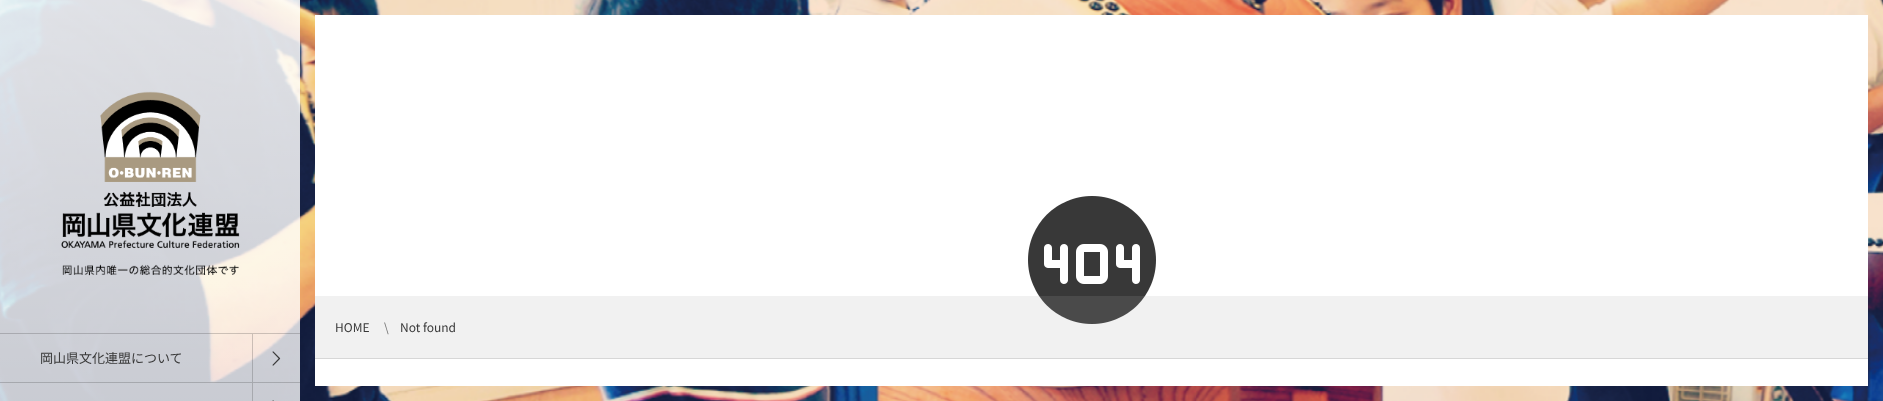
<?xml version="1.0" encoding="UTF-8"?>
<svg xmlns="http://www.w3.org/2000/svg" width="1883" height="401">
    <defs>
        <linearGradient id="g1" gradientUnits="userSpaceOnUse" x1="150" y1="0" x2="150" y2="401"><stop offset="0" stop-color="#FFFFFF" stop-opacity="0.52"/><stop offset="1" stop-color="#FFFFFF" stop-opacity="0.2"/></linearGradient>
    </defs>
    <rect width="100%" height="100%" fill="#FFFFFF"/>
    <image x="0" y="0" width="1883" height="401" href="img_01.png"/>
    <rect x="315" y="15" width="1553" height="371" fill="#FFFFFF"/>
    <image x="1028" y="196" width="128" height="128" href="img_02.png"/>
    <rect x="315" y="296" width="1553" height="62" fill="#AAAAAA" fill-opacity="0.16"/>
    <text x="335" y="332" font-family="Noto Sans JP" font-size="12" font-weight="100" fill="#383838">HOME</text>
    <text x="384" y="332" font-family="Noto Sans JP" font-size="12" font-weight="100" fill="#737373">\</text>
    <text x="400" y="332" font-family="Noto Sans JP" font-size="12" font-weight="100" fill="#383838">Not found</text>
    <rect x="315" y="358" width="1553" height="1" fill="#D7D7D7"/>
    <rect x="0" y="0" width="300" height="401" fill="#FFFFFF" fill-opacity="0.72"/>
    <rect x="0" y="0" width="300" height="401" fill="url(#g1)"/>
    <image x="61" y="91" width="179" height="185" href="img_03.png"/>
    <rect x="0" y="333" width="300" height="1" fill="#383838" fill-opacity="0.24"/>
    <rect x="0" y="382" width="300" height="1" fill="#383838" fill-opacity="0.24"/>
    <text x="40" y="363" font-family="Noto Sans JP" font-size="13" font-weight="100" fill="#383838">岡山県文化連盟について</text>
    <rect x="252" y="334" width="1" height="48" fill="#383838" fill-opacity="0.24"/>
    <image x="272" y="351" width="9" height="15" href="img_04.png"/>
    <rect x="252" y="383" width="1" height="18" fill="#A7A9AE"/>
    <image x="272" y="400" width="2" height="1" href="img_05.png"/>
</svg>
